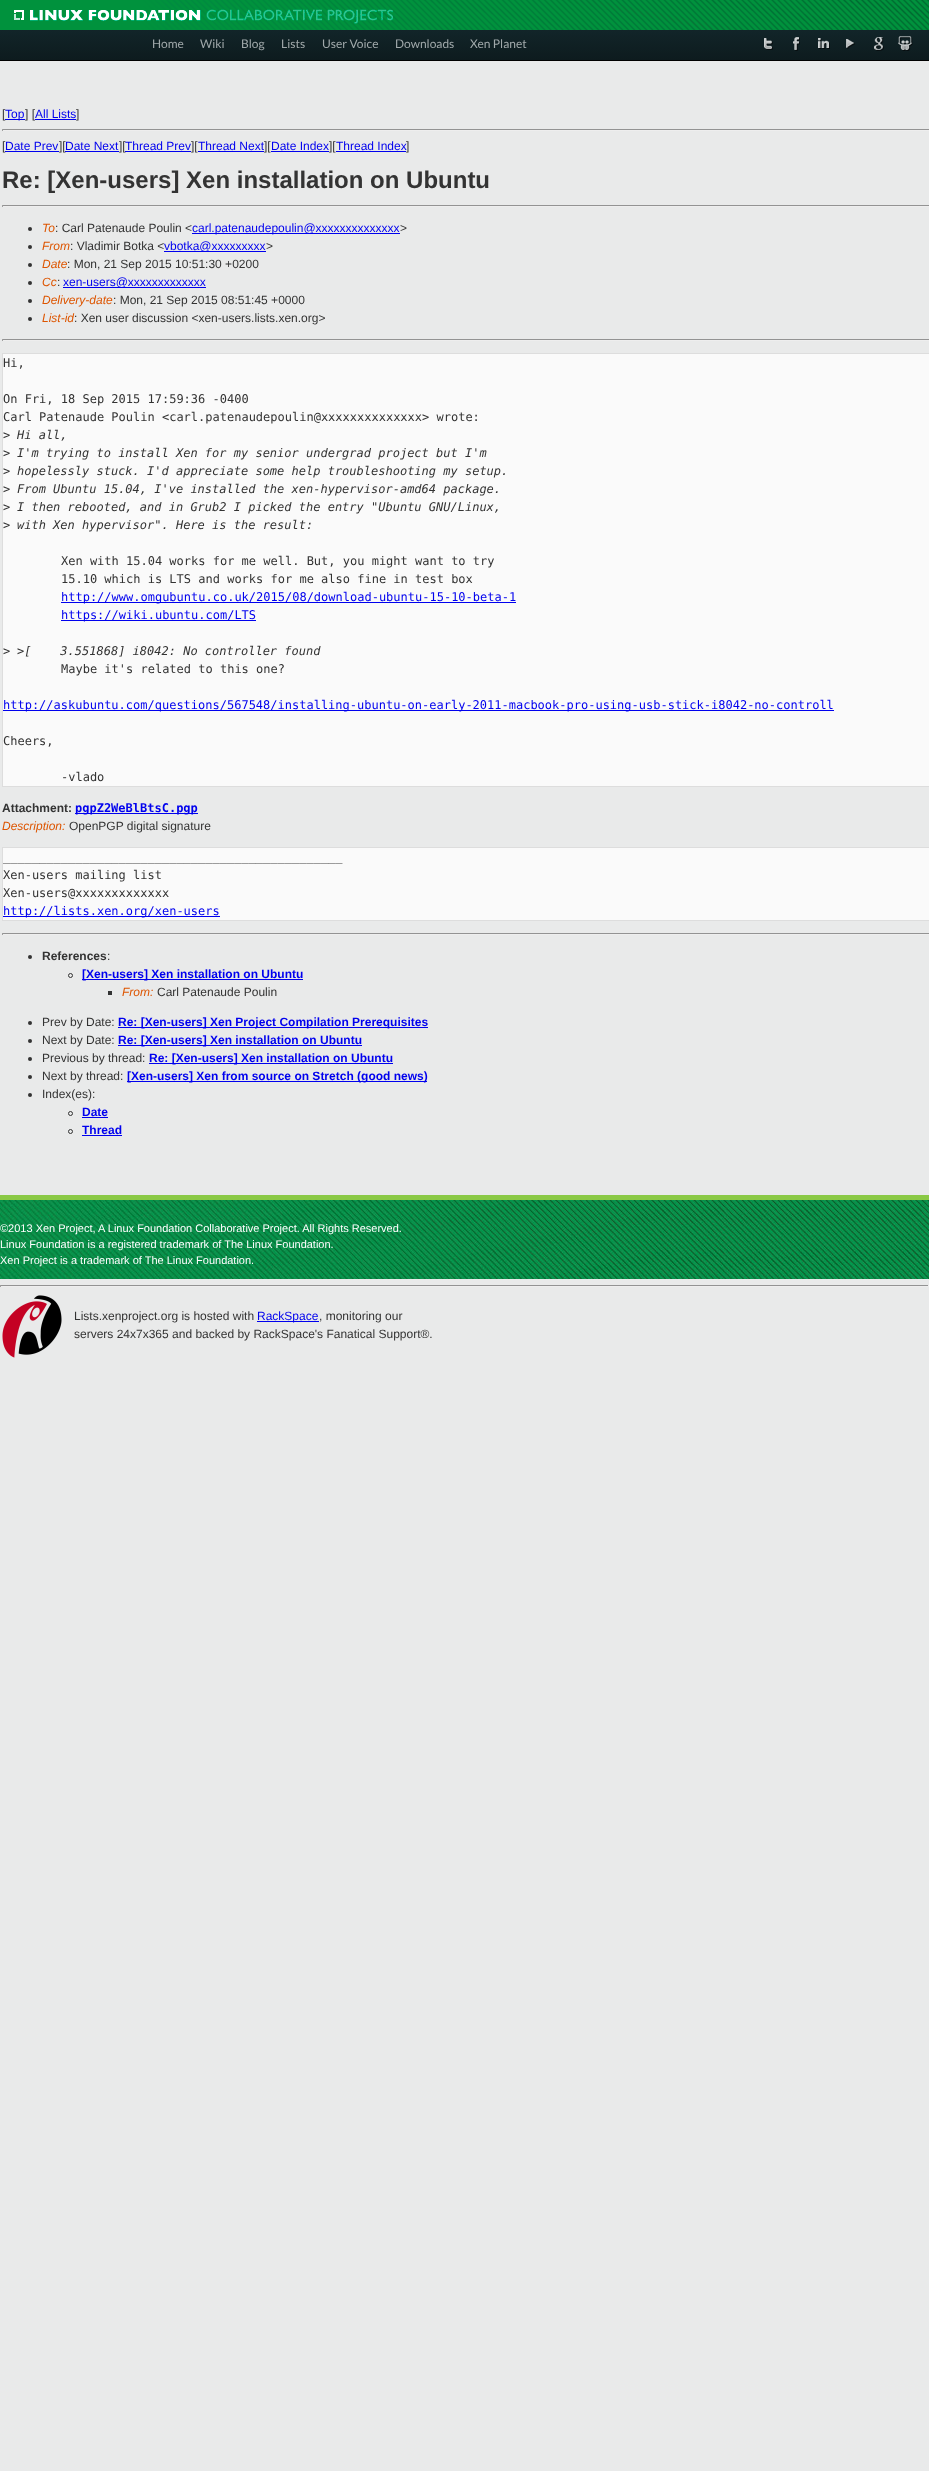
<?xml version="1.0" encoding="UTF-8"?>
<svg xmlns="http://www.w3.org/2000/svg" width="929" height="2471">
    <defs>
        <linearGradient id="g1" gradientUnits="userSpaceOnUse" x1="465" y1="30" x2="465" y2="60"><stop offset="0" stop-color="#122529"/><stop offset="1" stop-color="#0D1B1E"/></linearGradient>
    </defs>
    <rect width="100%" height="100%" fill="#E9EAEA"/>
    <image x="0" y="0" width="929" height="30" href="img_01.png"/>
    <image x="14" y="9" width="379" height="15" href="img_02.png"/>
    <rect x="0" y="30" width="929" height="30" fill="url(#g1)"/>
    <rect x="0" y="60" width="929" height="1" fill="#000000"/>
    <text x="152" y="48" font-family="Lato" font-size="12" fill="#A1A9AB">Home</text>
    <text x="200" y="48" font-family="Lato" font-size="12" fill="#A1A9AB">Wiki</text>
    <text x="241" y="48" font-family="Lato" font-size="12" fill="#A1A9AB">Blog</text>
    <text x="281" y="48" font-family="Lato" font-size="12" fill="#A1A9AB">Lists</text>
    <text x="322" y="48" font-family="Lato" font-size="12" fill="#A1A9AB">User Voice</text>
    <text x="395" y="48" font-family="Lato" font-size="12" fill="#A1A9AB">Downloads</text>
    <text x="470" y="48" font-family="Lato" font-size="12" fill="#A1A9AB">Xen Planet</text>
    <image x="764" y="38" width="9" height="12" href="img_03.png"/>
    <image x="793" y="37" width="7" height="14" href="img_04.png"/>
    <image x="818" y="38" width="12" height="11" href="img_05.png"/>
    <image x="846" y="39" width="9" height="10" href="img_06.png"/>
    <image x="874" y="37" width="10" height="14" href="img_07.png"/>
    <image x="898" y="36" width="15" height="15" href="img_08.png"/>
    <text x="2" y="118" font-family="Liberation Sans" font-size="12" fill="#333333">[</text>
    <rect x="5" y="119" width="20" height="1" fill="#0000EE"/>
    <text x="5" y="118" font-family="Liberation Sans" font-size="12" fill="#0000EE">Top</text>
    <text x="25" y="118" font-family="Liberation Sans" font-size="12" fill="#333333">] [</text>
    <text x="35" y="118" font-family="Liberation Sans" font-size="12" fill="#0000EE">All Lists</text>
    <text x="76" y="118" font-family="Liberation Sans" font-size="12" fill="#333333">]</text>
    <rect x="35" y="119" width="41" height="1" fill="#0000EE"/>
    <rect x="2" y="129" width="927" height="1" fill="#939393"/>
    <rect x="2" y="130" width="927" height="1" fill="#EEEEEE"/>
    <rect x="2" y="129" width="1" height="2" fill="#9F9F9F"/>
    <text x="2" y="150" font-family="Liberation Sans" font-size="12" fill="#333333">[</text>
    <text x="5" y="150" font-family="Liberation Sans" font-size="12" fill="#0000EE">Date Prev</text>
    <rect x="5" y="151" width="54" height="1" fill="#0000EE"/>
    <text x="59" y="150" font-family="Liberation Sans" font-size="12" fill="#333333">][</text>
    <text x="65" y="150" font-family="Liberation Sans" font-size="12" fill="#0000EE">Date Next</text>
    <rect x="65" y="151" width="54" height="1" fill="#0000EE"/>
    <text x="119" y="150" font-family="Liberation Sans" font-size="12" fill="#333333">][</text>
    <text x="125" y="150" font-family="Liberation Sans" font-size="12" fill="#0000EE">Thread Prev</text>
    <rect x="125" y="151" width="66" height="1" fill="#0000EE"/>
    <text x="191" y="150" font-family="Liberation Sans" font-size="12" fill="#333333">][</text>
    <text x="198" y="150" font-family="Liberation Sans" font-size="12" fill="#0000EE">Thread Next</text>
    <rect x="198" y="151" width="66" height="1" fill="#0000EE"/>
    <text x="264" y="150" font-family="Liberation Sans" font-size="12" fill="#333333">][</text>
    <text x="271" y="150" font-family="Liberation Sans" font-size="12" fill="#0000EE">Date Index</text>
    <rect x="271" y="151" width="58" height="1" fill="#0000EE"/>
    <text x="329" y="150" font-family="Liberation Sans" font-size="12" fill="#333333">][</text>
    <text x="336" y="150" font-family="Liberation Sans" font-size="12" fill="#0000EE">Thread Index</text>
    <rect x="336" y="151" width="70" height="1" fill="#0000EE"/>
    <text x="406" y="150" font-family="Liberation Sans" font-size="12" fill="#333333">]</text>
    <text x="2" y="188" font-family="Liberation Sans" font-size="24" font-weight="700" fill="#333333">Re: [Xen-users] Xen installation on Ubuntu</text>
    <rect x="2" y="205" width="927" height="1" fill="#939393"/>
    <rect x="2" y="206" width="927" height="1" fill="#EEEEEE"/>
    <rect x="2" y="205" width="1" height="2" fill="#9F9F9F"/>
    <circle cx="30" cy="229" r="2" fill="#333333"/>
    <text x="42" y="232" font-family="Liberation Sans" font-size="12" font-style="italic" fill="#DD5500">To</text>
    <text x="55" y="232" font-family="Liberation Sans" font-size="12" fill="#333333">: Carl Patenaude Poulin &lt;</text>
    <rect x="192" y="233" width="208" height="1" fill="#0000EE"/>
    <text x="192" y="232" font-family="Liberation Sans" font-size="12" fill="#0000EE">carl.patenaudepoulin@xxxxxxxxxxxxxx</text>
    <text x="400" y="232" font-family="Liberation Sans" font-size="12" fill="#333333">&gt;</text>
    <circle cx="30" cy="247" r="2" fill="#333333"/>
    <text x="42" y="250" font-family="Liberation Sans" font-size="12" font-style="italic" fill="#DD5500">From</text>
    <text x="70" y="250" font-family="Liberation Sans" font-size="12" fill="#333333">: Vladimir Botka &lt;</text>
    <rect x="164" y="251" width="102" height="1" fill="#0000EE"/>
    <text x="164" y="250" font-family="Liberation Sans" font-size="12" fill="#0000EE">vbotka@xxxxxxxxx</text>
    <text x="266" y="250" font-family="Liberation Sans" font-size="12" fill="#333333">&gt;</text>
    <circle cx="30" cy="265" r="2" fill="#333333"/>
    <text x="42" y="268" font-family="Liberation Sans" font-size="12" font-style="italic" fill="#DD5500">Date</text>
    <text x="67" y="268" font-family="Liberation Sans" font-size="12" fill="#333333">: Mon, 21 Sep 2015 10:51:30 +0200</text>
    <circle cx="30" cy="283" r="2" fill="#333333"/>
    <text x="42" y="286" font-family="Liberation Sans" font-size="12" font-style="italic" fill="#DD5500">Cc</text>
    <text x="57" y="286" font-family="Liberation Sans" font-size="12" fill="#333333">:</text>
    <rect x="63" y="287" width="143" height="1" fill="#0000EE"/>
    <text x="63" y="286" font-family="Liberation Sans" font-size="12" fill="#0000EE">xen-users@xxxxxxxxxxxxx</text>
    <circle cx="30" cy="301" r="2" fill="#333333"/>
    <text x="42" y="304" font-family="Liberation Sans" font-size="12" font-style="italic" fill="#DD5500">Delivery-date</text>
    <text x="113" y="304" font-family="Liberation Sans" font-size="12" fill="#333333">: Mon, 21 Sep 2015 08:51:45 +0000</text>
    <circle cx="30" cy="319" r="2" fill="#333333"/>
    <text x="42" y="322" font-family="Liberation Sans" font-size="12" font-style="italic" fill="#DD5500">List-id</text>
    <text x="74" y="322" font-family="Liberation Sans" font-size="12" fill="#333333">: Xen user discussion &lt;xen-users.lists.xen.org&gt;</text>
    <rect x="2" y="339" width="927" height="1" fill="#939393"/>
    <rect x="2" y="340" width="927" height="1" fill="#EEEEEE"/>
    <rect x="2" y="339" width="1" height="2" fill="#9F9F9F"/>
    <rect x="2.5" y="353.5" width="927" height="433" fill="#FAFAFA" stroke="#DDDDDD"/>
    <text x="3" y="367" font-family="DejaVu Sans Mono" font-size="12" fill="#333333">Hi,</text>
    <text font-family="DejaVu Sans Mono" font-size="12" fill="#333333">
        <tspan x="3" y="403">On Fri, 18 Sep 2015 17:59:36 -0400</tspan>
        <tspan x="3" y="421">Carl Patenaude Poulin &lt;carl.patenaudepoulin@xxxxxxxxxxxxxx&gt; wrote:</tspan>
        <tspan x="3" y="439">&gt;</tspan>
    </text>
    <text x="17" y="439" font-family="DejaVu Sans Mono" font-size="12" font-style="italic" fill="#333333">Hi all,</text>
    <text x="3" y="457" font-family="DejaVu Sans Mono" font-size="12" fill="#333333">&gt;</text>
    <text x="17" y="457" font-family="DejaVu Sans Mono" font-size="12" font-style="italic" fill="#333333">I'm trying to install Xen for my senior undergrad project but I'm</text>
    <text x="3" y="475" font-family="DejaVu Sans Mono" font-size="12" fill="#333333">&gt;</text>
    <text x="17" y="475" font-family="DejaVu Sans Mono" font-size="12" font-style="italic" fill="#333333">hopelessly stuck. I'd appreciate some help troubleshooting my setup.</text>
    <text x="3" y="493" font-family="DejaVu Sans Mono" font-size="12" fill="#333333">&gt;</text>
    <text x="17" y="493" font-family="DejaVu Sans Mono" font-size="12" font-style="italic" fill="#333333">From Ubuntu 15.04, I've installed the xen-hypervisor-amd64 package.</text>
    <text x="3" y="511" font-family="DejaVu Sans Mono" font-size="12" fill="#333333">&gt;</text>
    <text x="17" y="511" font-family="DejaVu Sans Mono" font-size="12" font-style="italic" fill="#333333">I then rebooted, and in Grub2 I picked the entry "Ubuntu GNU/Linux,</text>
    <text x="3" y="529" font-family="DejaVu Sans Mono" font-size="12" fill="#333333">&gt;</text>
    <text x="17" y="529" font-family="DejaVu Sans Mono" font-size="12" font-style="italic" fill="#333333">with Xen hypervisor". Here is the result:</text>
    <text font-family="DejaVu Sans Mono" font-size="12" fill="#333333">
        <tspan x="61" y="565">Xen with 15.04 works for me well. But, you might want to try</tspan>
        <tspan x="61" y="583">15.10 which is LTS and works for me also fine in test box</tspan>
    </text>
    <rect x="61" y="602" width="455" height="1" fill="#0000EE"/>
    <text x="61" y="601" font-family="DejaVu Sans Mono" font-size="12" fill="#0000EE">http://www.omgubuntu.co.uk/2015/08/download-ubuntu-15-10-beta-1</text>
    <rect x="61" y="620" width="195" height="1" fill="#0000EE"/>
    <text x="61" y="619" font-family="DejaVu Sans Mono" font-size="12" fill="#0000EE">https://wiki.ubuntu.com/LTS</text>
    <text x="3" y="655" font-family="DejaVu Sans Mono" font-size="12" fill="#333333">&gt;</text>
    <text x="17" y="655" font-family="DejaVu Sans Mono" font-size="12" font-style="italic" fill="#333333" xml:space="preserve">&gt;[    3.551868] i8042: No controller found</text>
    <text x="61" y="673" font-family="DejaVu Sans Mono" font-size="12" fill="#333333">Maybe it's related to this one?</text>
    <rect x="3" y="710" width="831" height="1" fill="#0000EE"/>
    <text x="3" y="709" font-family="DejaVu Sans Mono" font-size="12" fill="#0000EE">http://askubuntu.com/questions/567548/installing-ubuntu-on-early-2011-macbook-pro-using-usb-stick-i8042-no-controll</text>
    <text x="3" y="745" font-family="DejaVu Sans Mono" font-size="12" fill="#333333">Cheers,</text>
    <text x="61" y="781" font-family="DejaVu Sans Mono" font-size="12" fill="#333333">-vlado</text>
    <text x="2" y="812" font-family="Liberation Sans" font-size="12" font-weight="700" fill="#333333">Attachment:</text>
    <rect x="75" y="813" width="123" height="1" fill="#0000EE"/>
    <text x="75" y="812" font-family="DejaVu Sans Mono" font-size="12" font-weight="700" fill="#0000EE">pgpZ2WeBlBtsC.pgp</text>
    <text x="2" y="830" font-family="Liberation Sans" font-size="12" font-style="italic" fill="#DD5500">Description:</text>
    <text x="69" y="830" font-family="Liberation Sans" font-size="12" fill="#333333">OpenPGP digital signature</text>
    <rect x="2.5" y="847.5" width="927" height="73" fill="#FAFAFA" stroke="#DDDDDD"/>
    <text font-family="DejaVu Sans Mono" font-size="12" fill="#333333">
        <tspan x="3" y="861">_______________________________________________</tspan>
        <tspan x="3" y="879">Xen-users mailing list</tspan>
        <tspan x="3" y="897">Xen-users@xxxxxxxxxxxxx</tspan>
    </text>
    <rect x="3" y="916" width="217" height="1" fill="#0000EE"/>
    <text x="3" y="915" font-family="DejaVu Sans Mono" font-size="12" fill="#0000EE">http://lists.xen.org/xen-users</text>
    <rect x="2" y="933" width="927" height="1" fill="#939393"/>
    <rect x="2" y="934" width="927" height="1" fill="#EEEEEE"/>
    <rect x="2" y="933" width="1" height="2" fill="#9F9F9F"/>
    <circle cx="30" cy="957" r="2" fill="#333333"/>
    <text x="42" y="960" font-family="Liberation Sans" font-size="12" font-weight="700" fill="#333333">References</text>
    <text x="107" y="960" font-family="Liberation Sans" font-size="12" fill="#333333">:</text>
    <circle cx="70.5" cy="975.5" r="2" fill="none" stroke="#333333"/>
    <rect x="82" y="979" width="221" height="1" fill="#0000EE"/>
    <text x="82" y="978" font-family="Liberation Sans" font-size="12" font-weight="700" fill="#0000EE">[Xen-users] Xen installation on Ubuntu</text>
    <rect x="108" y="991" width="4" height="4" fill="#333333"/>
    <text x="122" y="996" font-family="Liberation Sans" font-size="12" font-style="italic" fill="#DD5500">From:</text>
    <text x="157" y="996" font-family="Liberation Sans" font-size="12" fill="#333333">Carl Patenaude Poulin</text>
    <circle cx="30" cy="1023" r="2" fill="#333333"/>
    <text x="42" y="1026" font-family="Liberation Sans" font-size="12" fill="#333333">Prev by Date:</text>
    <rect x="118" y="1027" width="310" height="1" fill="#0000EE"/>
    <text x="118" y="1026" font-family="Liberation Sans" font-size="12" font-weight="700" fill="#0000EE">Re: [Xen-users] Xen Project Compilation Prerequisites</text>
    <circle cx="30" cy="1041" r="2" fill="#333333"/>
    <text x="42" y="1044" font-family="Liberation Sans" font-size="12" fill="#333333">Next by Date:</text>
    <rect x="118" y="1045" width="244" height="1" fill="#0000EE"/>
    <text x="118" y="1044" font-family="Liberation Sans" font-size="12" font-weight="700" fill="#0000EE">Re: [Xen-users] Xen installation on Ubuntu</text>
    <circle cx="30" cy="1059" r="2" fill="#333333"/>
    <text x="42" y="1062" font-family="Liberation Sans" font-size="12" fill="#333333">Previous by thread:</text>
    <rect x="149" y="1063" width="244" height="1" fill="#0000EE"/>
    <text x="149" y="1062" font-family="Liberation Sans" font-size="12" font-weight="700" fill="#0000EE">Re: [Xen-users] Xen installation on Ubuntu</text>
    <circle cx="30" cy="1077" r="2" fill="#333333"/>
    <text x="42" y="1080" font-family="Liberation Sans" font-size="12" fill="#333333">Next by thread:</text>
    <rect x="127" y="1081" width="300" height="1" fill="#0000EE"/>
    <text x="127" y="1080" font-family="Liberation Sans" font-size="12" font-weight="700" fill="#0000EE">[Xen-users] Xen from source on Stretch (good news)</text>
    <circle cx="30" cy="1095" r="2" fill="#333333"/>
    <text x="42" y="1098" font-family="Liberation Sans" font-size="12" fill="#333333">Index(es):</text>
    <circle cx="70.5" cy="1113.5" r="2" fill="none" stroke="#333333"/>
    <text x="82" y="1116" font-family="Liberation Sans" font-size="12" font-weight="700" fill="#0000EE">Date</text>
    <rect x="82" y="1117" width="26" height="1" fill="#0000EE"/>
    <circle cx="70.5" cy="1131.5" r="2" fill="none" stroke="#333333"/>
    <text x="82" y="1134" font-family="Liberation Sans" font-size="12" font-weight="700" fill="#0000EE">Thread</text>
    <rect x="82" y="1135" width="40" height="1" fill="#0000EE"/>
    <image x="0" y="1200" width="929" height="79" href="img_09.png"/>
    <rect x="0" y="1195" width="929" height="5" fill="#8AC945"/>
    <text font-family="Liberation Sans" font-size="11" fill="#FFFFFF">
        <tspan x="0" y="1232">©2013 Xen Project, A Linux Foundation Collaborative Project. All Rights Reserved.</tspan>
        <tspan x="0" y="1248">Linux Foundation is a registered trademark of The Linux Foundation.</tspan>
        <tspan x="0" y="1264">Xen Project is a trademark of The Linux Foundation.</tspan>
    </text>
    <rect x="0" y="1285" width="929" height="1" fill="#939393"/>
    <rect x="928" y="1285" width="1" height="2" fill="#EEEEEE"/>
    <rect x="0" y="1286" width="929" height="1" fill="#EEEEEE"/>
    <rect x="0" y="1285" width="1" height="2" fill="#9F9F9F"/>
    <image x="2" y="1295" width="60" height="63" href="img_10.png"/>
    <text x="74" y="1320" font-family="Liberation Sans" font-size="12" fill="#333333">Lists.xenproject.org is hosted with</text>
    <rect x="257" y="1321" width="62" height="1" fill="#0000EE"/>
    <text x="257" y="1320" font-family="Liberation Sans" font-size="12" fill="#0000EE">RackSpace</text>
    <text x="319" y="1320" font-family="Liberation Sans" font-size="12" fill="#333333">, monitoring our</text>
    <text x="74" y="1338" font-family="Liberation Sans" font-size="12" fill="#333333">servers 24x7x365 and backed by RackSpace's Fanatical Support®.</text>
</svg>
